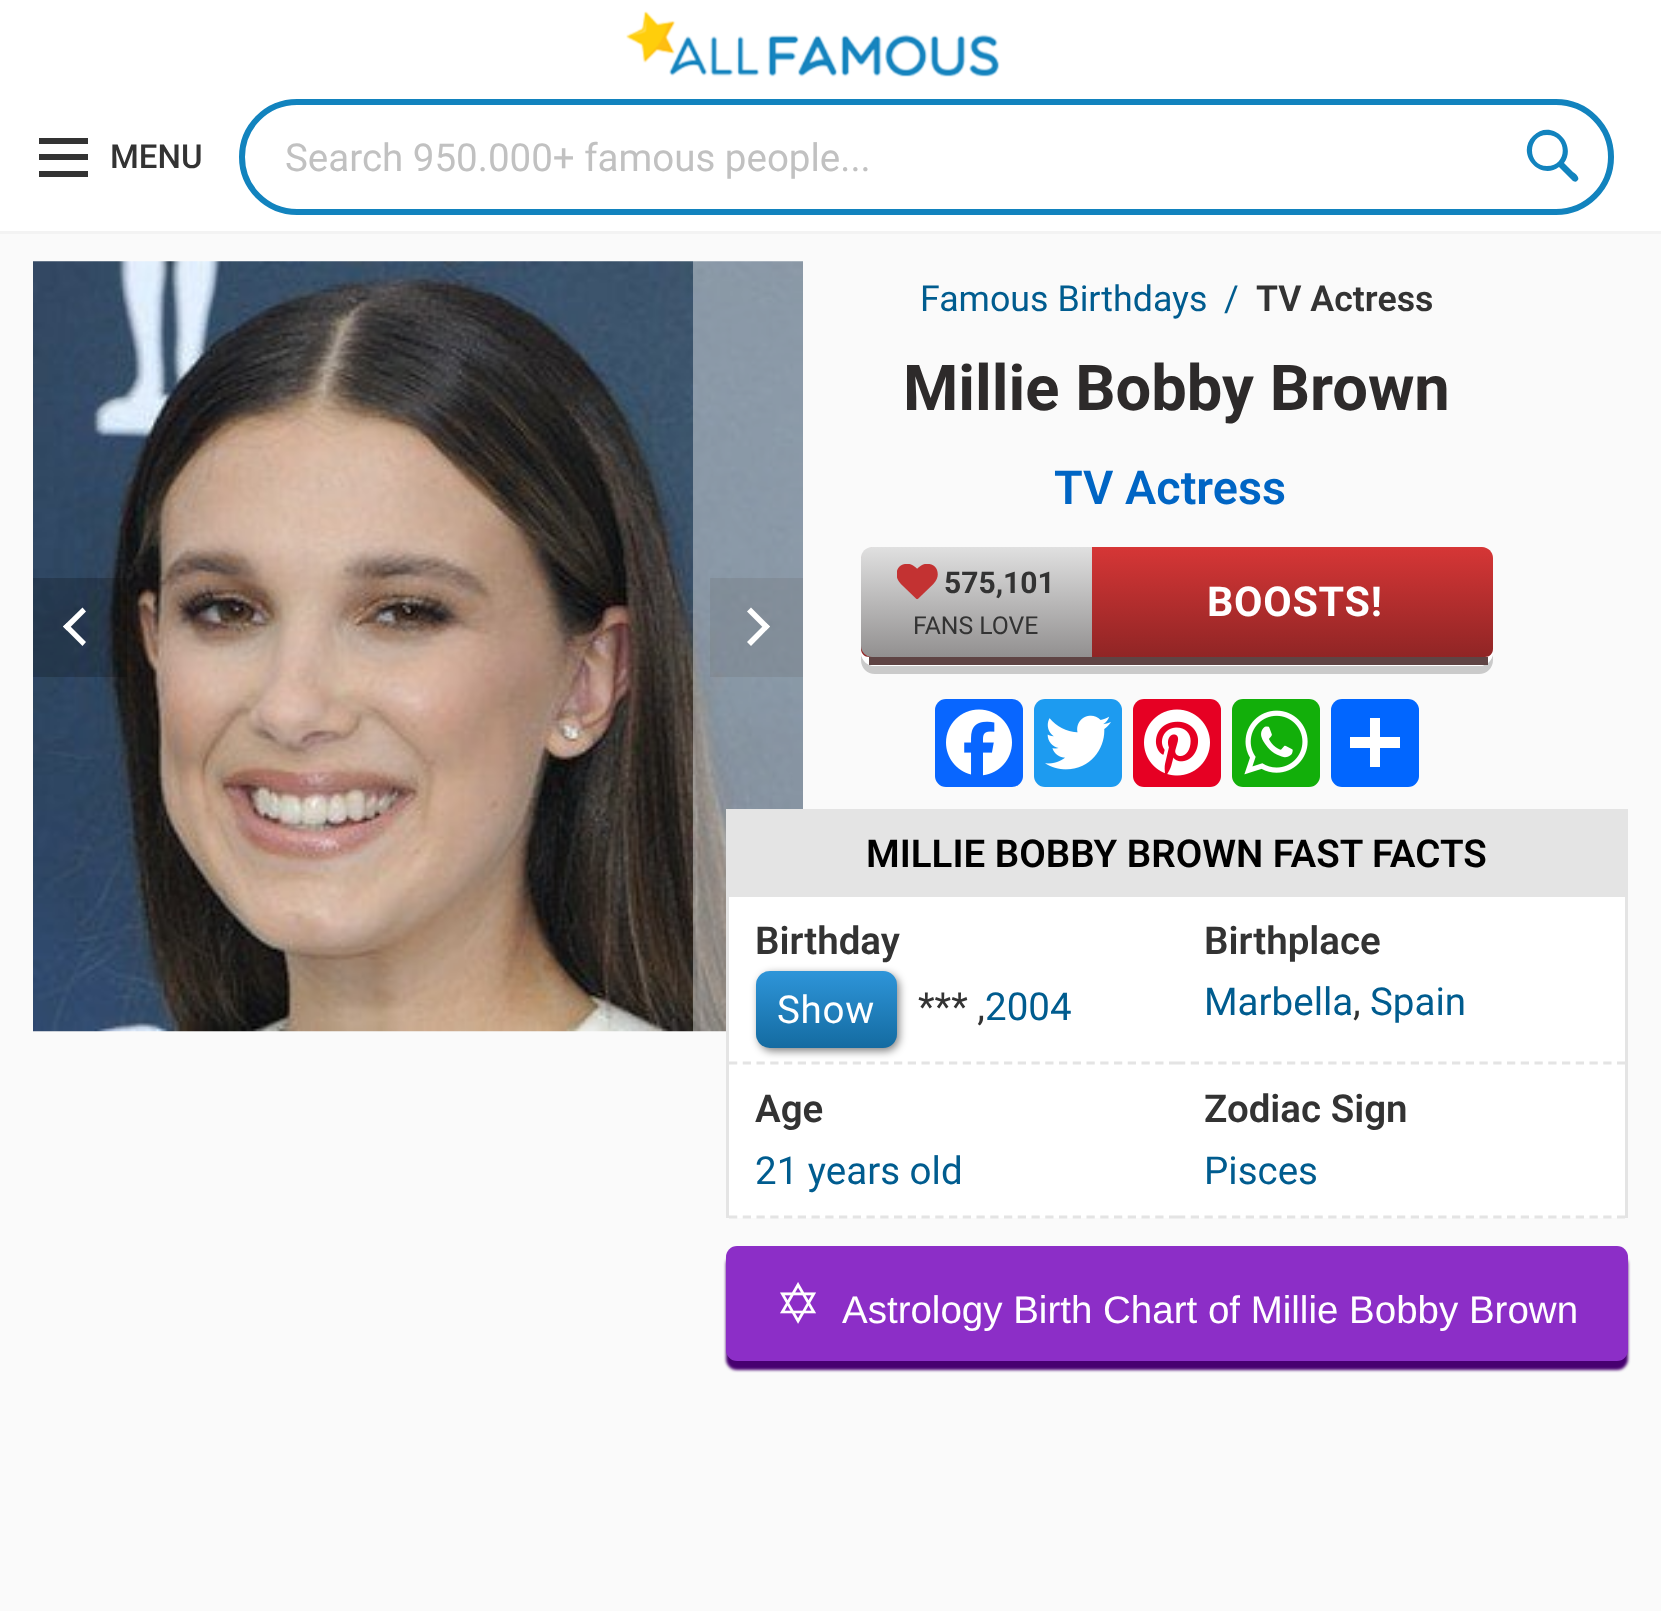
<?xml version="1.0" encoding="UTF-8"?>
<svg xmlns="http://www.w3.org/2000/svg" width="1661" height="1611">
    <defs>
        <linearGradient id="g1" gradientUnits="userSpaceOnUse" x1="1177" y1="547" x2="1177" y2="657"><stop offset="0" stop-color="#D63636"/><stop offset="1" stop-color="#902525"/></linearGradient>
        <linearGradient id="g2" gradientUnits="userSpaceOnUse" x1="976" y1="547" x2="976" y2="657"><stop offset="0" stop-color="#E0E0E0"/><stop offset="1" stop-color="#929090"/></linearGradient>
        <filter id="blur1" x="-50%" y="-200%" width="200%" height="500%"><feGaussianBlur stdDeviation="4"/></filter>
        <linearGradient id="g3" gradientUnits="userSpaceOnUse" x1="826" y1="971" x2="826" y2="1048"><stop offset="0" stop-color="#2E95D9"/><stop offset="1" stop-color="#146BA1"/></linearGradient>
        <filter id="blur2" x="-50%" y="-200%" width="200%" height="500%"><feGaussianBlur stdDeviation="1.5"/></filter>
    </defs>
    <rect width="100%" height="100%" fill="#FAFAFA"/>
    <rect x="0" y="0" width="1661" height="231" fill="#FFFFFF"/>
    <rect x="0" y="231" width="1661" height="3" fill="#F3F3F3"/>
    <image x="626" y="11" width="374" height="66" href="img_01.png"/>
    <rect x="39" y="154" width="49" height="6" fill="#333333"/>
    <rect x="39" y="138" width="49" height="6" fill="#333333"/>
    <rect x="39" y="171" width="49" height="6" fill="#333333"/>
    <text x="110" y="168" font-family="Roboto" font-size="33" font-weight="500" fill="#333333">MENU</text>
    <rect x="242" y="102" width="1369" height="110" rx="55" fill="none" stroke="#1283BE" stroke-width="6"/>
    <text x="285" y="171" font-family="Roboto" font-size="38.5" fill="#C1C1C1">Search 950.000+ famous people...</text>
    <path d="M 1559 167 C 1540 181 1515 154 1533 136 C 1551 118 1578 143 1564 163 L 1573 172 C 1575 173 1581 178 1577 181 C 1576 182 1575 182 1573 181 Z M 1547 166 C 1568 166 1568 135 1547 135 C 1527 135 1527 166 1547 166 Z" fill="#1283BE"/>
    <image x="33" y="261" width="770" height="771" href="img_02.png"/>
    <rect x="33" y="578" width="94" height="99" fill="#000000" fill-opacity="0.2"/>
    <path d="M 67 623 L 86 642 L 82.5 646 L 63 626.5 Z" fill="#FFFFFF"/>
    <path d="M 82.5 607.5 L 86 611.5 L 67 630.5 L 63 626.5 Z" fill="#FFFFFF"/>
    <rect x="710" y="578" width="93" height="99" fill="#000000" fill-opacity="0.2"/>
    <path d="M 766 630.5 L 747 611.5 L 751 607.5 L 770 626.5 Z" fill="#FFFFFF"/>
    <path d="M 751 646 L 747 642 L 766 623 L 770 626.5 Z" fill="#FFFFFF"/>
    <rect x="693" y="261" width="110" height="771" fill="#FFFFFF" fill-opacity="0.4"/>
    <text x="920" y="311" font-family="Roboto" font-size="35.75" fill="#005C8F">Famous Birthdays</text>
    <text x="1224" y="311" font-family="Roboto" font-size="35.75" fill="#005C8F">/</text>
    <text x="1256" y="311" font-family="Roboto" font-size="35.75" font-weight="600" fill="#333333">TV Actress</text>
    <text x="903" y="410" font-family="Roboto" font-size="63.25" font-weight="700" fill="#2D2A2A">Millie Bobby Brown</text>
    <text x="1054" y="504" font-family="Roboto" font-size="46.75" font-weight="600" fill="#0065C4">TV Actress</text>
    <path d="M 861 654 V 660 C 861 668 867 674 875 674 H 1479 C 1487 674 1493 668 1493 660 V 654 C 1492 661 1486 666 1480 666 H 874 C 868 666 862 661 861 654 Z" fill="#CACACA"/>
    <rect x="861" y="547" width="632" height="119" rx="14" fill="#FFFFFF"/>
    <rect x="869" y="657" width="619" height="8" fill="#5F4444"/>
    <path d="M 875 547 H 1482 C 1488 547 1493 552 1493 558 V 649 C 1493 653.5 1489.5 657 1485 657 H 869 C 864.5 657 861 653.5 861 649 V 561 C 861 553.5 867.5 547 875 547 Z" fill="url(#g1)"/>
    <path d="M 872 547 H 1092 V 657 H 872 C 866 657 861 652 861 646 V 558 C 861 552 866 547 872 547 Z" fill="url(#g2)"/>
    <image x="897" y="564" width="41" height="36" href="img_03.png"/>
    <text x="944" y="593" font-family="Roboto" font-size="30" font-weight="700" fill="#333333">575,101</text>
    <text x="913" y="634" font-family="Roboto" font-size="24.75" fill="#333333">FANS LOVE</text>
    <text x="1207" y="616" font-family="Roboto" font-size="41.25" font-weight="700" letter-spacing="0.75" fill="#FFFFFF">BOOSTS!</text>
    <rect x="935" y="699" width="88" height="88" rx="11" fill="#0866FF"/>
    <image x="946" y="709" width="66" height="67" href="img_04.png"/>
    <rect x="1034" y="699" width="88" height="88" rx="11" fill="#1D9BF0"/>
    <image x="1045" y="715" width="66" height="55" href="img_05.png"/>
    <rect x="1133" y="699" width="88" height="88" rx="11" fill="#E60023"/>
    <image x="1144" y="709" width="66" height="67" href="img_06.png"/>
    <rect x="1232" y="699" width="88" height="88" rx="11" fill="#12AF0A"/>
    <image x="1244" y="710" width="64" height="65" href="img_07.png"/>
    <rect x="1331" y="699" width="88" height="88" rx="11" fill="#0166FF"/>
    <rect x="1370" y="718" width="10" height="49" fill="#FFFFFF"/>
    <rect x="1350" y="737" width="50" height="11" fill="#FFFFFF"/>
    <rect x="729" y="897" width="896" height="321" fill="#FFFFFF"/>
    <rect x="726" y="809" width="902" height="2" fill="#E4E4E4"/>
    <rect x="1625" y="809" width="3" height="409" fill="#E4E4E4"/>
    <rect x="726" y="809" width="3" height="409" fill="#E4E4E4"/>
    <rect x="729" y="811" width="896" height="86" fill="#E4E4E4"/>
    <text x="866" y="867" font-family="Roboto" font-size="38.5" font-weight="600" fill="#000000">MILLIE BOBBY BROWN FAST FACTS</text>
    <path d="M 729 1063 H 1177" fill="none" stroke="#E4E4E4" stroke-width="2.8" stroke-dasharray="8.25 5.5"/>
    <text x="755" y="954" font-family="Roboto" font-size="38.5" font-weight="600" fill="#333333">Birthday</text>
    <rect x="759" y="974" width="140" height="77" rx="14" fill="#000000" fill-opacity="0.5" filter="url(#blur1)"/>
    <rect x="756" y="971" width="141" height="77" rx="14" fill="url(#g3)"/>
    <text x="777" y="1023" font-family="Roboto" font-size="38.5" letter-spacing="0.75" fill="#FFFFFF">Show</text>
    <text x="918" y="1020" font-family="Roboto" font-size="38.5" fill="#333333">*** ,</text>
    <text x="985" y="1020" font-family="Roboto" font-size="38.5" fill="#005C8F">2004</text>
    <path d="M 1177 1063 H 1625" fill="none" stroke="#E4E4E4" stroke-width="2.8" stroke-dasharray="8.25 5.5"/>
    <text x="1204" y="954" font-family="Roboto" font-size="38.5" font-weight="600" fill="#333333">Birthplace</text>
    <text x="1204" y="1015" font-family="Roboto" font-size="38.5" fill="#005C8F">Marbella</text>
    <text x="1353" y="1015" font-family="Roboto" font-size="38.5" fill="#333333">,</text>
    <text x="1370" y="1015" font-family="Roboto" font-size="38.5" fill="#005C8F">Spain</text>
    <path d="M 729 1217 H 1177" fill="none" stroke="#E4E4E4" stroke-width="2.8" stroke-dasharray="8.25 5.5"/>
    <text x="755" y="1122" font-family="Roboto" font-size="38.5" font-weight="600" fill="#333333">Age</text>
    <text x="755" y="1184" font-family="Roboto" font-size="38.5" fill="#005C8F">21 years old</text>
    <path d="M 1177 1217 H 1625" fill="none" stroke="#E4E4E4" stroke-width="2.8" stroke-dasharray="8.25 5.5"/>
    <text x="1204" y="1122" font-family="Roboto" font-size="38.5" font-weight="600" fill="#333333">Zodiac Sign</text>
    <text x="1204" y="1184" font-family="Roboto" font-size="38.5" fill="#005C8F">Pisces</text>
    <rect x="726" y="1254" width="902" height="116" rx="11" fill="#460070" filter="url(#blur2)"/>
    <rect x="726" y="1246" width="902" height="115" rx="11" fill="#8C2EC7"/>
    <text x="775" y="1323" font-family="DejaVu Sans" font-size="55" fill="#FFFFFF">✡</text>
    <text x="842" y="1323" font-family="Liberation Sans" font-size="38.5" fill="#FFFFFF">Astrology Birth Chart of Millie Bobby Brown</text>
</svg>
